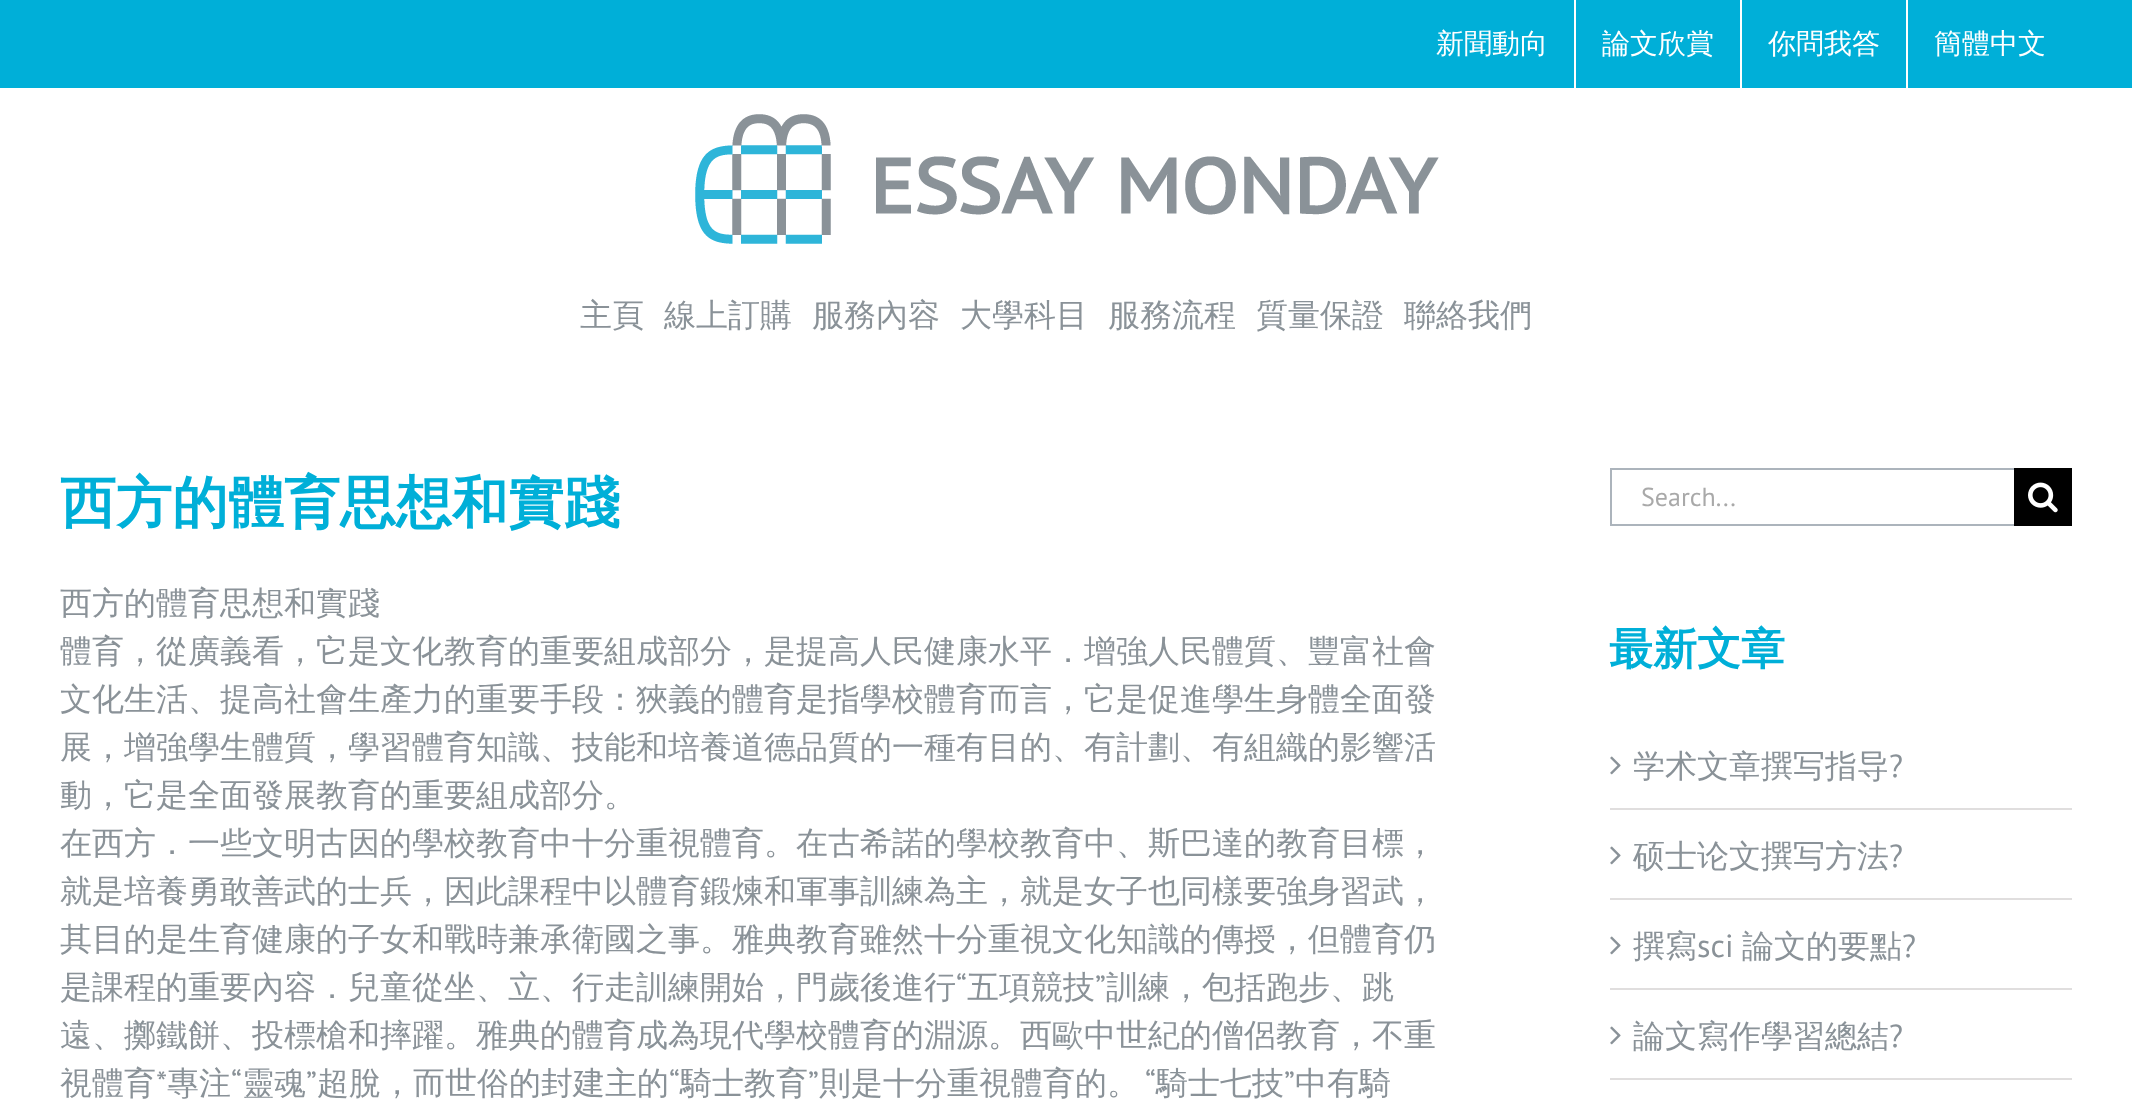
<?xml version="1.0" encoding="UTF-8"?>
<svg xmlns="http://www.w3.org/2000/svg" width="2132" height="1110">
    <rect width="100%" height="100%" fill="#FFFFFF"/>
    <rect x="0" y="0" width="2132" height="88" fill="#00AFD8"/>
    <text x="1436" y="53" font-family="WenQuanYi Zen Hei" font-size="28" font-weight="500" fill="#FFFFFF">新聞動向</text>
    <rect x="1574" y="0" width="2" height="88" fill="#FFFFFF"/>
    <text x="1602" y="53" font-family="WenQuanYi Zen Hei" font-size="28" font-weight="500" fill="#FFFFFF">論文欣賞</text>
    <rect x="1740" y="0" width="2" height="88" fill="#FFFFFF"/>
    <text x="1768" y="53" font-family="WenQuanYi Zen Hei" font-size="28" font-weight="500" fill="#FFFFFF">你問我答</text>
    <rect x="1906" y="0" width="2" height="88" fill="#FFFFFF"/>
    <text x="1934" y="53" font-family="WenQuanYi Zen Hei" font-size="28" font-weight="500" fill="#FFFFFF">簡體中文</text>
    <image x="695" y="114" width="744" height="130" href="img_01.png"/>
    <text x="580" y="326" font-family="WenQuanYi Zen Hei" font-size="32" font-weight="500" fill="#8A9298">主頁</text>
    <text x="664" y="326" font-family="WenQuanYi Zen Hei" font-size="32" font-weight="500" fill="#8A9298">線上訂購</text>
    <text x="812" y="326" font-family="WenQuanYi Zen Hei" font-size="32" font-weight="500" fill="#8A9298">服務內容</text>
    <text x="960" y="326" font-family="WenQuanYi Zen Hei" font-size="32" font-weight="500" fill="#8A9298">大學科目</text>
    <text x="1108" y="326" font-family="WenQuanYi Zen Hei" font-size="32" font-weight="500" fill="#8A9298">服務流程</text>
    <text x="1256" y="326" font-family="WenQuanYi Zen Hei" font-size="32" font-weight="500" fill="#8A9298">質量保證</text>
    <text x="1404" y="326" font-family="WenQuanYi Zen Hei" font-size="32" font-weight="500" fill="#8A9298">聯絡我們</text>
    <text x="60" y="522" font-family="WenQuanYi Zen Hei" font-size="56" font-weight="700" fill="#00AFD8">西方的體育思想和實踐</text>
    <text font-family="WenQuanYi Zen Hei" font-size="32" font-weight="500" fill="#8A9298">
        <tspan x="60" y="614">西方的體育思想和實踐</tspan>
        <tspan x="60" y="662">體育，從廣義看，它是文化教育的重要組成部分，是提高人民健康水平．增強人民體質、豐富社會</tspan>
        <tspan x="60" y="710">文化生活、提高社會生產力的重要手段：狹義的體育是指學校體育而言，它是促進學生身體全面發</tspan>
        <tspan x="60" y="758">展，增強學生體質，學習體育知識、技能和培養道德品質的一種有目的、有計劃、有組織的影響活</tspan>
        <tspan x="60" y="806">動，它是全面發展教育的重要組成部分。</tspan>
        <tspan x="60" y="854">在西方．一些文明古因的學校教育中十分重視體育。在古希諾的學校教育中、斯巴達的教育目標，</tspan>
        <tspan x="60" y="902">就是培養勇敢善武的士兵，因此課程中以體育鍛煉和軍事訓練為主，就是女子也同樣要強身習武，</tspan>
        <tspan x="60" y="950">其目的是生育健康的子女和戰時兼承衛國之事。雅典教育雖然十分重視文化知識的傳授，但體育仍</tspan>
        <tspan x="60" y="998">是課程的重要內容．兒童從坐、立、行走訓練開始，門歲後進行</tspan>
    </text>
    <text x="956" y="998" font-family="PT Sans" font-size="32" fill="#8A9298">“</text>
    <text x="967" y="998" font-family="WenQuanYi Zen Hei" font-size="32" font-weight="500" fill="#8A9298">五項競技</text>
    <text x="1095" y="998" font-family="PT Sans" font-size="32" fill="#8A9298">”</text>
    <text x="1106" y="998" font-family="WenQuanYi Zen Hei" font-size="32" font-weight="500" fill="#8A9298">訓練，包括跑步、跳</text>
    <text font-family="WenQuanYi Zen Hei" font-size="32" font-weight="500" fill="#8A9298">
        <tspan x="60" y="1046">遠、擲鐵餅、投標槍和摔躍。雅典的體育成為現代學校體育的淵源。西歐中世紀的僧侶教育，不重</tspan>
        <tspan x="60" y="1094">視體育</tspan>
    </text>
    <text x="156" y="1094" font-family="PT Sans" font-size="32" fill="#8A9298">*</text>
    <text x="167" y="1094" font-family="WenQuanYi Zen Hei" font-size="32" font-weight="500" fill="#8A9298">專注</text>
    <text x="231" y="1094" font-family="PT Sans" font-size="32" fill="#8A9298">“</text>
    <text x="242" y="1094" font-family="WenQuanYi Zen Hei" font-size="32" font-weight="500" fill="#8A9298">靈魂</text>
    <text x="306" y="1094" font-family="PT Sans" font-size="32" fill="#8A9298">”</text>
    <text x="317" y="1094" font-family="WenQuanYi Zen Hei" font-size="32" font-weight="500" fill="#8A9298">超脫，而世俗的封建主的</text>
    <text x="669" y="1094" font-family="PT Sans" font-size="32" fill="#8A9298">“</text>
    <text x="680" y="1094" font-family="WenQuanYi Zen Hei" font-size="32" font-weight="500" fill="#8A9298">騎士教育</text>
    <text x="808" y="1094" font-family="PT Sans" font-size="32" fill="#8A9298">”</text>
    <text x="819" y="1094" font-family="WenQuanYi Zen Hei" font-size="32" font-weight="500" fill="#8A9298">則是十分重視體育的。</text>
    <text x="1145" y="1094" font-family="PT Sans" font-size="32" fill="#8A9298">“</text>
    <text x="1156" y="1094" font-family="WenQuanYi Zen Hei" font-size="32" font-weight="500" fill="#8A9298">騎士七技</text>
    <text x="1284" y="1094" font-family="PT Sans" font-size="32" fill="#8A9298">”</text>
    <text x="1295" y="1094" font-family="WenQuanYi Zen Hei" font-size="32" font-weight="500" fill="#8A9298">中有騎</text>
    <rect x="1610" y="468" width="404" height="2" fill="#ACB4BC"/>
    <rect x="1610" y="524" width="404" height="2" fill="#ACB4BC"/>
    <rect x="1610" y="468" width="2" height="58" fill="#ACB4BC"/>
    <text x="1641" y="506" font-family="PT Sans" font-size="26" fill="#A9A9A9">Search...</text>
    <rect x="2014" y="468" width="58" height="58" fill="#000000"/>
    <image x="2028" y="482" width="30" height="31" href="img_02.png"/>
    <text x="1609" y="664" font-family="WenQuanYi Zen Hei" font-size="44" font-weight="700" fill="#00AFD8">最新文章</text>
    <rect x="1610" y="808" width="462" height="2" fill="#E0DEDE"/>
    <image x="1610" y="756" width="11" height="19" href="img_03.png"/>
    <text x="1633" y="777" font-family="WenQuanYi Zen Hei" font-size="32" font-weight="500" fill="#8A9298">学术文章撰写指导</text>
    <text x="1889" y="777" font-family="PT Sans" font-size="32" fill="#8A9298">?</text>
    <rect x="1610" y="898" width="462" height="2" fill="#E0DEDE"/>
    <image x="1610" y="846" width="11" height="19" href="img_03.png"/>
    <text x="1633" y="867" font-family="WenQuanYi Zen Hei" font-size="32" font-weight="500" fill="#8A9298">硕士论文撰写方法</text>
    <text x="1889" y="867" font-family="PT Sans" font-size="32" fill="#8A9298">?</text>
    <rect x="1610" y="988" width="462" height="2" fill="#E0DEDE"/>
    <image x="1610" y="936" width="11" height="19" href="img_03.png"/>
    <text x="1633" y="957" font-family="WenQuanYi Zen Hei" font-size="32" font-weight="500" fill="#8A9298">撰寫</text>
    <text x="1697" y="957" font-family="PT Sans" font-size="32" fill="#8A9298">sci</text>
    <text x="1742" y="957" font-family="WenQuanYi Zen Hei" font-size="32" font-weight="500" fill="#8A9298">論文的要點</text>
    <text x="1902" y="957" font-family="PT Sans" font-size="32" fill="#8A9298">?</text>
    <rect x="1610" y="1078" width="462" height="2" fill="#E0DEDE"/>
    <image x="1610" y="1026" width="11" height="19" href="img_03.png"/>
    <text x="1633" y="1047" font-family="WenQuanYi Zen Hei" font-size="32" font-weight="500" fill="#8A9298">論文寫作學習總結</text>
    <text x="1889" y="1047" font-family="PT Sans" font-size="32" fill="#8A9298">?</text>
</svg>
